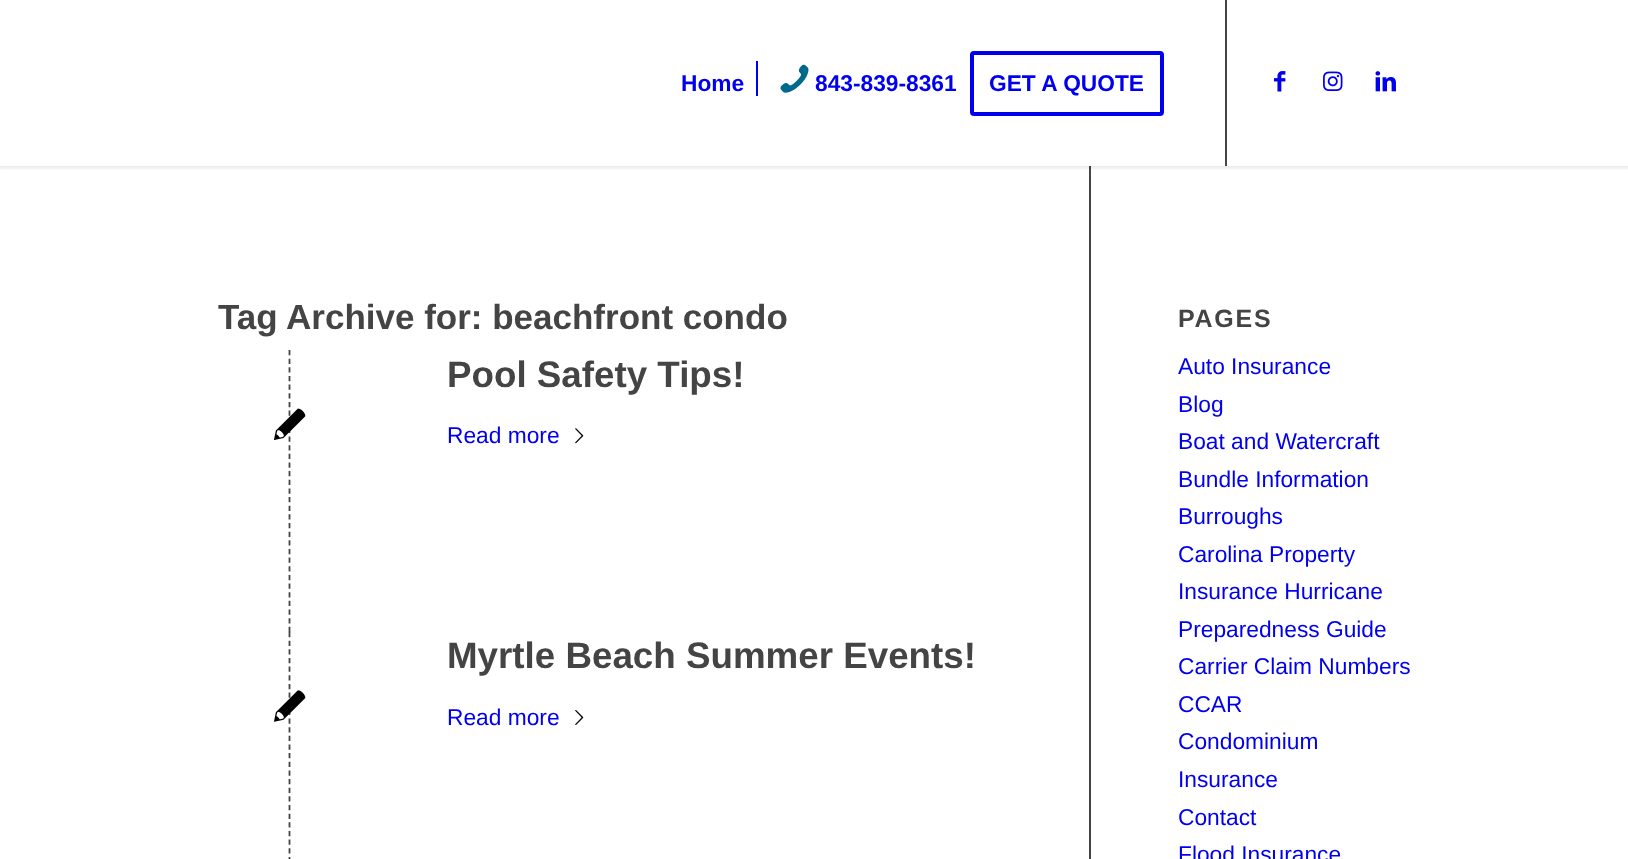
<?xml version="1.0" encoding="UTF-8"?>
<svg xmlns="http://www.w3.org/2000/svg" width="1628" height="859">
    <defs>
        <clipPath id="clip1"><rect x="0" y="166" width="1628" height="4"/></clipPath>
        <filter id="blur1" x="-50%" y="-200%" width="200%" height="500%"><feGaussianBlur stdDeviation="2"/></filter>
    </defs>
    <rect width="100%" height="100%" fill="#FFFFFF"/>
    <rect x="1089" y="166" width="2" height="693" fill="#444444"/>
    <g clip-path="url(#clip1)">
        <rect x="-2" y="-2" width="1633" height="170" fill="#000000" fill-opacity="0.1" filter="url(#blur1)"/>
    </g>
    <rect x="1225" y="0" width="2" height="166" fill="#444444"/>
    <text x="681" y="91" font-family="Liberation Sans" font-size="22.75" font-weight="700" fill="#0000EE">Home</text>
    <image x="780" y="64" width="29" height="29" href="img_01.png"/>
    <text x="815" y="91" font-family="Liberation Sans" font-size="22.75" font-weight="700" fill="#0000EE">843-839-8361</text>
    <rect x="756" y="61" width="2" height="35" fill="#0000EE"/>
    <rect x="972" y="53" width="190" height="61" rx="2" fill="none" stroke="#0000EE" stroke-width="4"/>
    <text x="989" y="91" font-family="Liberation Sans" font-size="22.75" font-weight="700" fill="#0000EE">GET A QUOTE</text>
    <image x="1274" y="71" width="12" height="21" href="img_02.png"/>
    <image x="1323" y="71" width="20" height="21" href="img_03.png"/>
    <image x="1375" y="71" width="21" height="21" href="img_04.png"/>
    <text x="218" y="329" font-family="Liberation Sans" font-size="35" font-weight="700" fill="#444444">Tag Archive for: beachfront condo</text>
    <path d="M 289.5 350 V 632" fill="none" stroke="#444444" stroke-width="1.8" stroke-dasharray="5.25 3.4"/>
    <text x="447" y="387" font-family="Liberation Sans" font-size="36.75" font-weight="700" fill="#444444">Pool Safety Tips!</text>
    <text x="447" y="443" font-family="Liberation Sans" font-size="22.75" fill="#0000EE">Read more</text>
    <image x="575" y="428" width="9" height="16" href="img_05.png"/>
    <image x="274" y="408" width="32" height="32" href="img_06.png"/>
    <path d="M 289.5 632 V 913.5" fill="none" stroke="#444444" stroke-width="1.8" stroke-dasharray="5.25 3.4"/>
    <text x="447" y="668" font-family="Liberation Sans" font-size="36.75" font-weight="700" fill="#444444">Myrtle Beach Summer Events!</text>
    <text x="447" y="725" font-family="Liberation Sans" font-size="22.75" fill="#0000EE">Read more</text>
    <image x="575" y="710" width="9" height="15" href="img_07.png"/>
    <image x="274" y="690" width="32" height="32" href="img_08.png"/>
    <text x="1178" y="327" font-family="Liberation Sans" font-size="25" font-weight="700" letter-spacing="1.75" fill="#444444">PAGES</text>
    <text font-family="Liberation Sans" font-size="22.75" fill="#0000EE">
        <tspan x="1178" y="374">Auto Insurance</tspan>
        <tspan x="1178" y="412">Blog</tspan>
        <tspan x="1178" y="449">Boat and Watercraft</tspan>
        <tspan x="1178" y="487">Bundle Information</tspan>
        <tspan x="1178" y="524">Burroughs</tspan>
        <tspan x="1178" y="562">Carolina Property</tspan>
        <tspan x="1178" y="599">Insurance Hurricane</tspan>
        <tspan x="1178" y="637">Preparedness Guide</tspan>
        <tspan x="1178" y="674">Carrier Claim Numbers</tspan>
        <tspan x="1178" y="712">CCAR</tspan>
        <tspan x="1178" y="749">Condominium</tspan>
        <tspan x="1178" y="787">Insurance</tspan>
        <tspan x="1178" y="825">Contact</tspan>
        <tspan x="1178" y="862">Flood Insurance</tspan>
    </text>
</svg>
